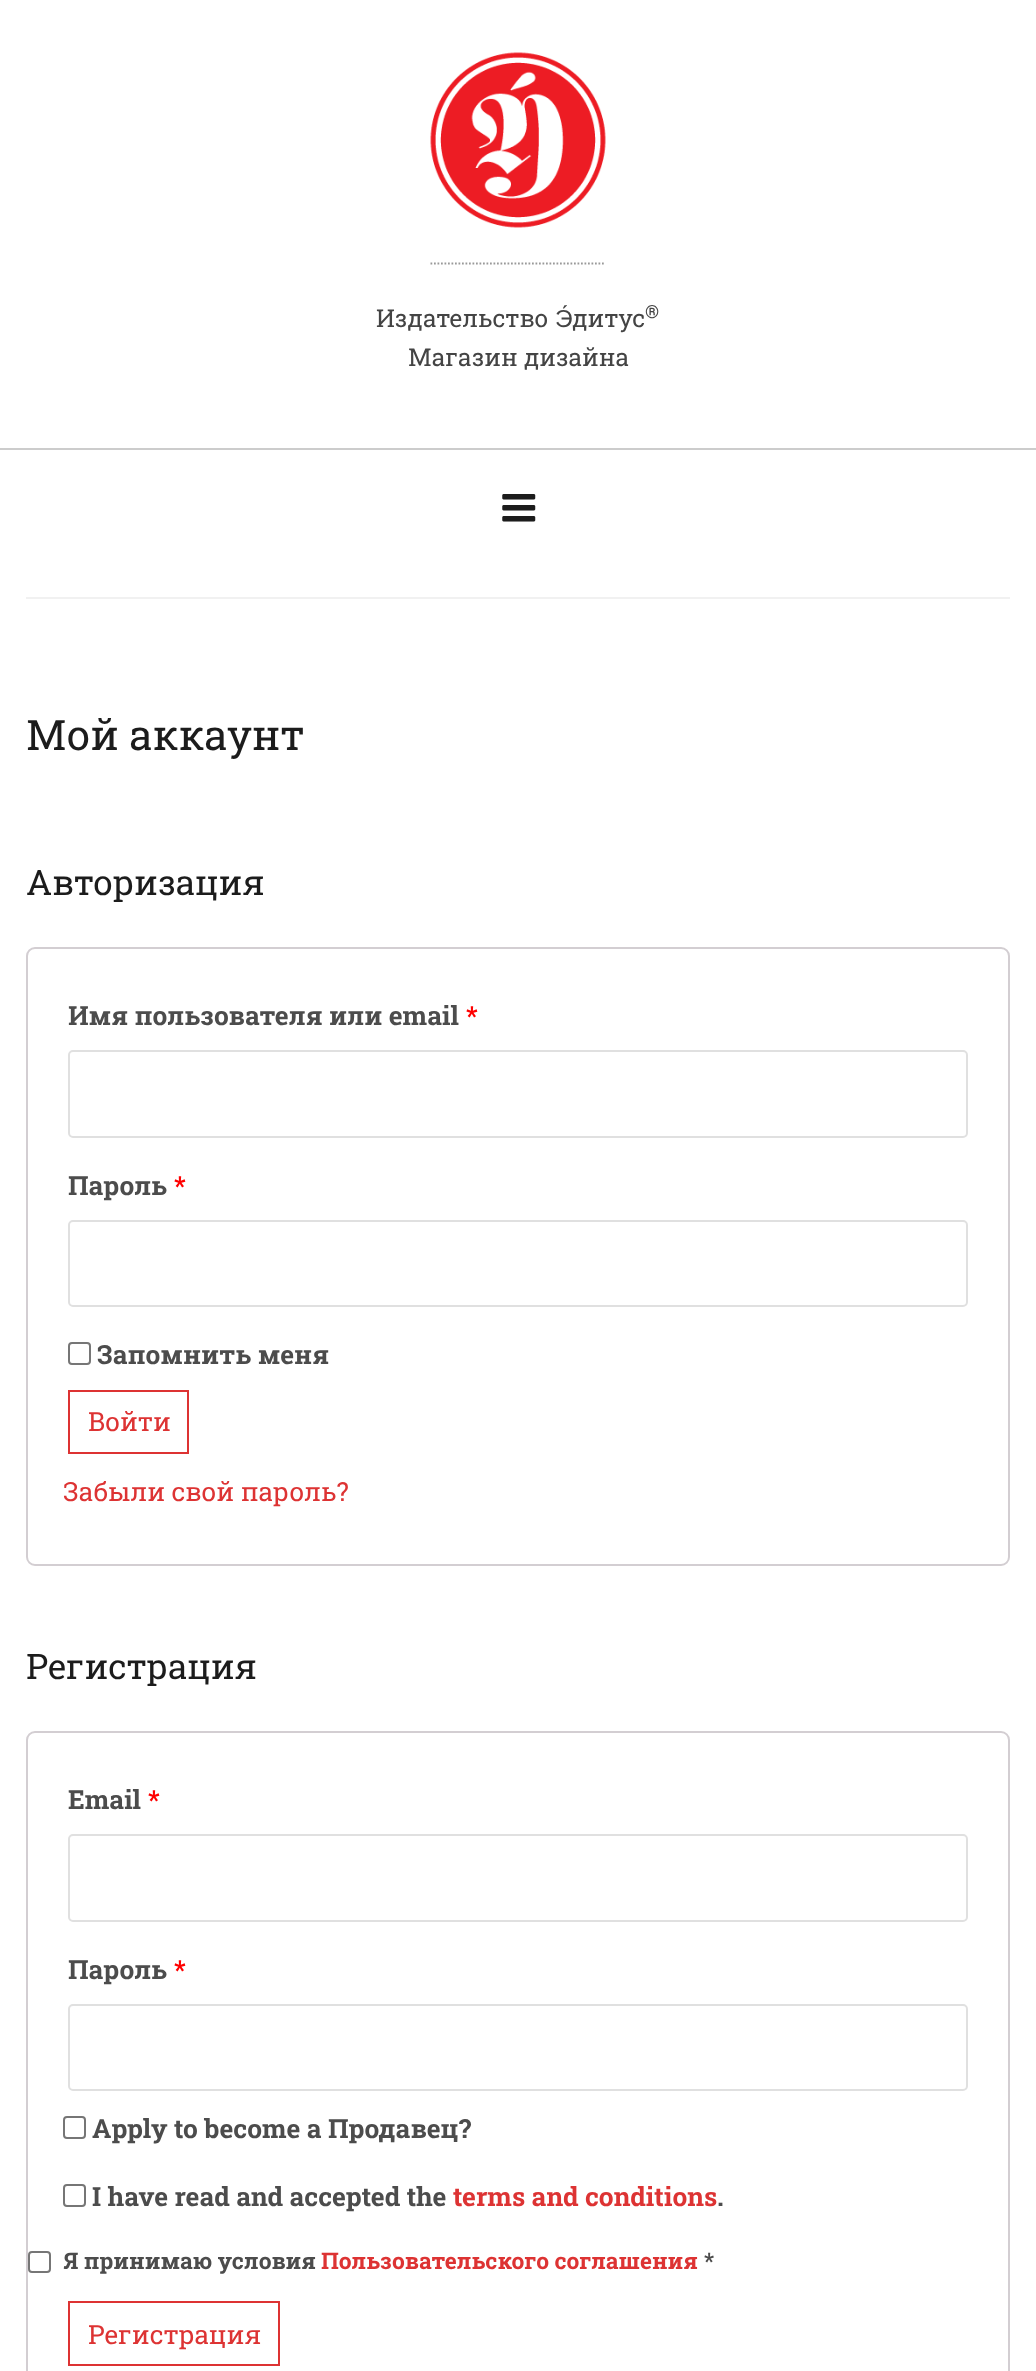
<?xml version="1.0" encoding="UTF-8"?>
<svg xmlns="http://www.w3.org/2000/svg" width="1036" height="2371">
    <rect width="100%" height="100%" fill="#FFFFFF"/>
    <image x="430" y="52" width="176" height="176" href="img_01.png"/>
    <path d="M 430.5 263.5 H 605.5" fill="none" stroke="#999999" stroke-width="1.8" stroke-dasharray="1.75 1.75"/>
    <text x="376" y="327" font-family="Roboto Slab" font-size="24.5" fill="#444444">Издательство</text>
    <text x="555" y="327" font-family="Liberation Sans" font-size="24.5" fill="#444444">Э́</text>
    <text x="572" y="327" font-family="Roboto Slab" font-size="24.5" fill="#444444">дитус</text>
    <text x="645" y="318" font-family="Roboto Slab" font-size="18" fill="#444444">®</text>
    <text x="408" y="366" font-family="Roboto Slab" font-size="24.5" fill="#444444">Магазин дизайна</text>
    <rect x="0" y="448" width="1036" height="2" fill="#CCCCCC"/>
    <image x="502" y="494" width="34" height="28" href="img_02.png"/>
    <rect x="26" y="597" width="984" height="2" fill="#F1F1F1"/>
    <text x="26" y="750" font-family="Roboto Slab" font-size="42" fill="#1C1C1C">Мой аккаунт</text>
    <text x="26" y="895" font-family="Roboto Slab" font-size="35" fill="#1C1C1C">Авторизация</text>
    <rect x="27" y="948" width="982" height="617" rx="8" fill="none" stroke="#D3CED2" stroke-width="2"/>
    <text x="68" y="1025" font-family="Roboto Slab" font-size="26.25" font-weight="700" fill="#4C4C4C">Имя пользователя или email</text>
    <text x="466" y="1025" font-family="Roboto Slab" font-size="26.25" font-weight="700" fill="#FF0000">*</text>
    <rect x="69" y="1051" width="898" height="86" rx="4" fill="none" stroke="#E0E0E0" stroke-width="2"/>
    <text x="68" y="1195" font-family="Roboto Slab" font-size="26.25" font-weight="700" fill="#4C4C4C">Пароль</text>
    <text x="174" y="1195" font-family="Roboto Slab" font-size="26.25" font-weight="700" fill="#FF0000">*</text>
    <rect x="69" y="1221" width="898" height="85" rx="4" fill="none" stroke="#E0E0E0" stroke-width="2"/>
    <rect x="69" y="1343" width="21" height="21" rx="3" fill="none" stroke="#767676" stroke-width="2"/>
    <text x="97" y="1364" font-family="Roboto Slab" font-size="26.25" font-weight="700" fill="#4C4C4C">Запомнить меня</text>
    <rect x="69" y="1391" width="119" height="62" fill="none" stroke="#DD3333" stroke-width="2"/>
    <text x="88" y="1431" font-family="Roboto Slab" font-size="26.25" fill="#DD3333">Войти</text>
    <text x="63" y="1501" font-family="Roboto Slab" font-size="26.25" fill="#DD3333">Забыли свой пароль?</text>
    <text x="26" y="1679" font-family="Roboto Slab" font-size="35" fill="#1C1C1C">Регистрация</text>
    <rect x="27" y="1732" width="982" height="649" rx="8" fill="none" stroke="#D3CED2" stroke-width="2"/>
    <text x="68" y="1809" font-family="Roboto Slab" font-size="26.25" font-weight="700" fill="#4C4C4C">Email</text>
    <text x="148" y="1809" font-family="Roboto Slab" font-size="26.25" font-weight="700" fill="#FF0000">*</text>
    <rect x="69" y="1835" width="898" height="86" rx="4" fill="none" stroke="#E0E0E0" stroke-width="2"/>
    <text x="68" y="1979" font-family="Roboto Slab" font-size="26.25" font-weight="700" fill="#4C4C4C">Пароль</text>
    <text x="174" y="1979" font-family="Roboto Slab" font-size="26.25" font-weight="700" fill="#FF0000">*</text>
    <rect x="69" y="2005" width="898" height="85" rx="4" fill="none" stroke="#E0E0E0" stroke-width="2"/>
    <rect x="64" y="2117" width="21" height="21" rx="3" fill="none" stroke="#767676" stroke-width="2"/>
    <text x="92" y="2138" font-family="Roboto Slab" font-size="26.25" font-weight="700" fill="#4C4C4C">Apply to become a Продавец?</text>
    <rect x="64" y="2185" width="21" height="21" rx="3" fill="none" stroke="#767676" stroke-width="2"/>
    <text x="92" y="2206" font-family="Roboto Slab" font-size="26.25" font-weight="700" fill="#4C4C4C">I have read and accepted the</text>
    <text x="453" y="2206" font-family="Roboto Slab" font-size="26.25" font-weight="700" fill="#DD3333">terms and conditions</text>
    <text x="717" y="2206" font-family="Roboto Slab" font-size="26.25" font-weight="700" fill="#4C4C4C">.</text>
    <rect x="29" y="2252" width="21" height="20" rx="3" fill="none" stroke="#767676" stroke-width="2"/>
    <text x="63" y="2269" font-family="Roboto Slab" font-size="22.75" font-weight="700" fill="#4C4C4C">Я принимаю условия</text>
    <text x="321" y="2269" font-family="Roboto Slab" font-size="22.75" font-weight="700" fill="#DD3333">Пользовательского соглашения</text>
    <text x="704" y="2269" font-family="Roboto Slab" font-size="22.75" font-weight="700" fill="#4C4C4C">*</text>
    <rect x="69" y="2302" width="210" height="63" fill="none" stroke="#DD3333" stroke-width="2"/>
    <text x="88" y="2344" font-family="Roboto Slab" font-size="26.25" fill="#DD3333">Регистрация</text>
</svg>
